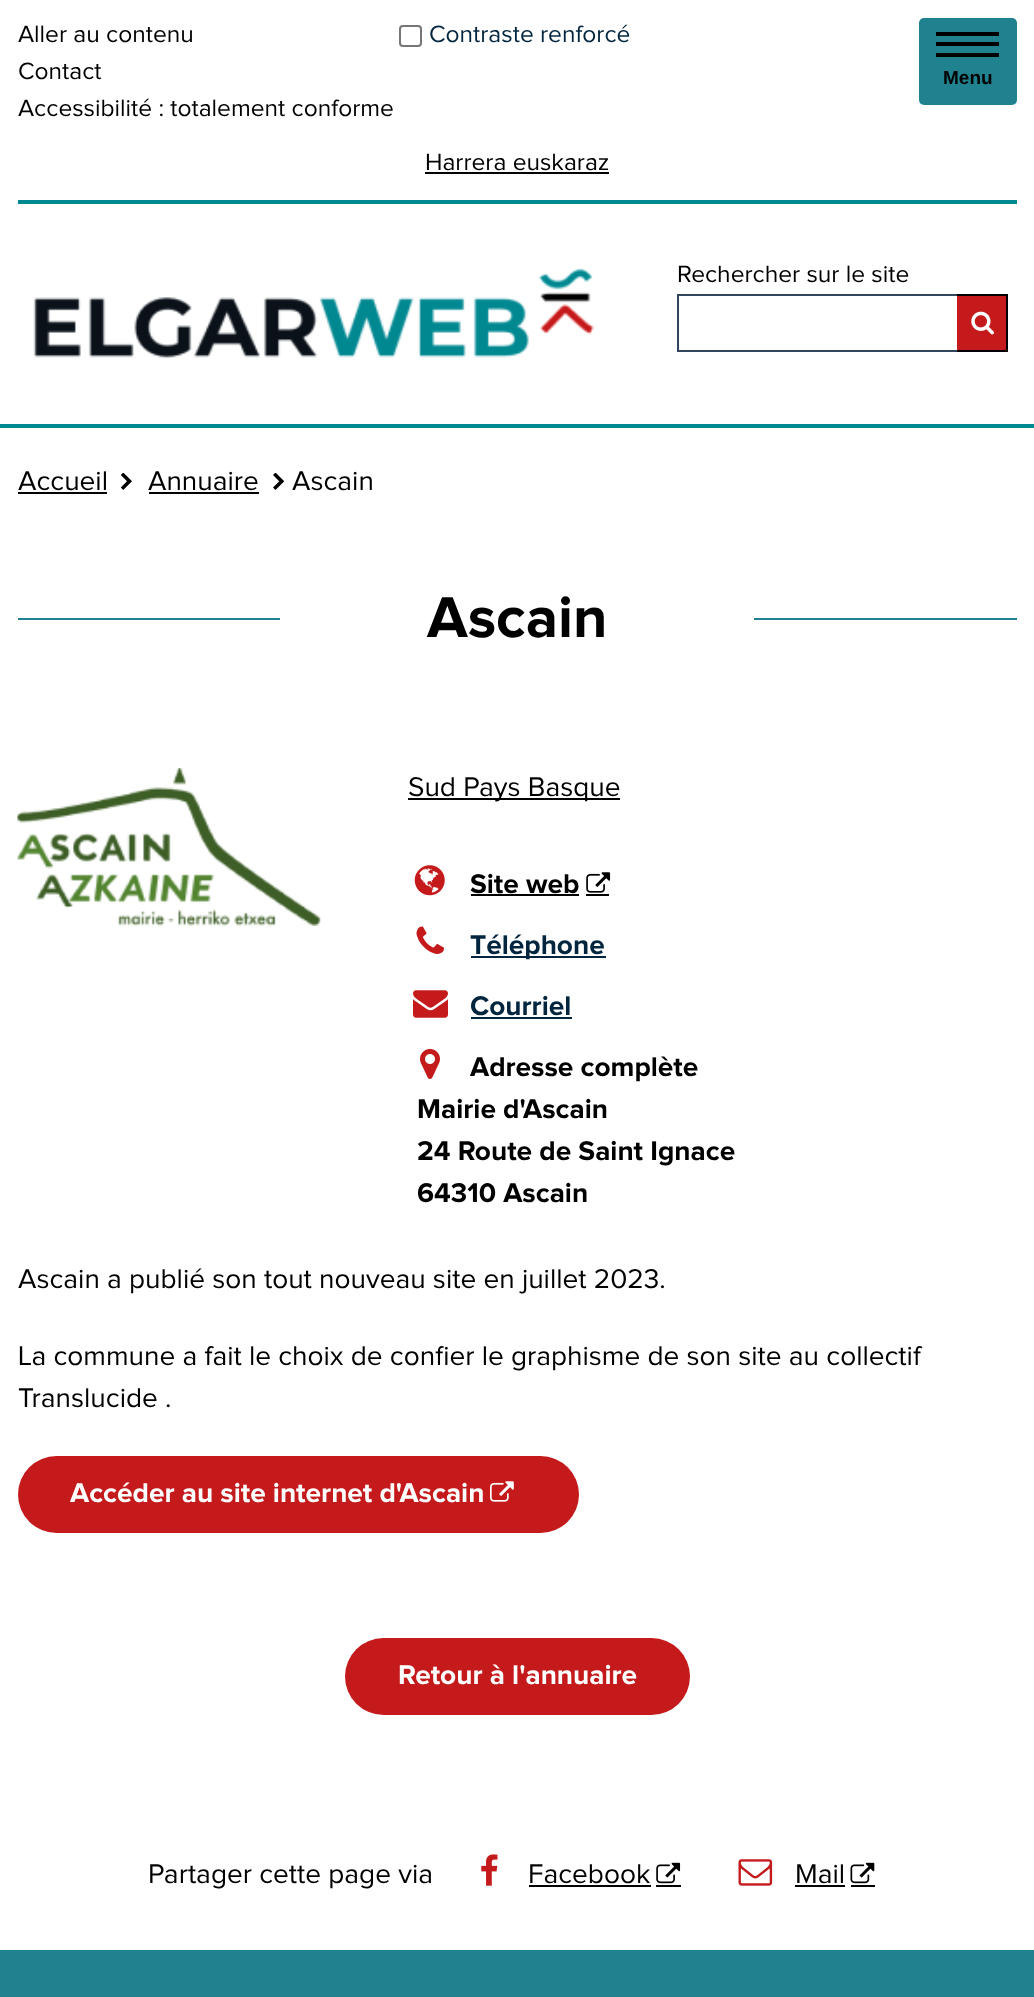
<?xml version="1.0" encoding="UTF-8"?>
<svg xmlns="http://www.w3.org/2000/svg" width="1034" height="1997">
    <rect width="100%" height="100%" fill="#FFFFFF"/>
    <text font-family="Proxima Nova" font-size="24.5" fill="#000000">
        <tspan x="18" y="42">Aller au contenu</tspan>
        <tspan x="18" y="79">Contact</tspan>
        <tspan x="18" y="116">Accessibilité : totalement conforme</tspan>
    </text>
    <rect x="400" y="26" width="21" height="20" rx="3" fill="none" stroke="#767676" stroke-width="2"/>
    <text x="429" y="42" font-family="Proxima Nova" font-size="24.5" fill="#00253F">Contraste renforcé</text>
    <text x="425" y="170" font-family="Proxima Nova" font-size="24.5" fill="#000000">Harrera euskaraz</text>
    <rect x="425" y="172" width="184" height="2" fill="#000000"/>
    <rect x="18" y="200" width="999" height="4" fill="#008891"/>
    <image x="33" y="268" width="561" height="91" href="img_01.png"/>
    <text x="677" y="282" font-family="Proxima Nova" font-size="24.5" fill="#000000">Rechercher sur le site</text>
    <rect x="677" y="294" width="280" height="2" fill="#31455D"/>
    <rect x="677" y="350" width="280" height="2" fill="#31455D"/>
    <rect x="677" y="294" width="2" height="58" fill="#31455D"/>
    <rect x="957" y="296" width="49" height="54" fill="#C51A1B"/>
    <rect x="957" y="294" width="51" height="2" fill="#000000"/>
    <rect x="1006" y="294" width="2" height="58" fill="#000000"/>
    <rect x="957" y="350" width="51" height="2" fill="#000000"/>
    <image x="971" y="311" width="23" height="24" href="img_02.png"/>
    <rect x="0" y="424" width="1034" height="4" fill="#008891"/>
    <rect x="919" y="18" width="98" height="87" rx="5" fill="#20828F"/>
    <rect x="936" y="42" width="63" height="4" fill="#000000"/>
    <rect x="936" y="32" width="63" height="4" fill="#000000"/>
    <rect x="936" y="53" width="63" height="4" fill="#000000"/>
    <text x="943" y="84" font-family="Liberation Sans" font-size="19" font-weight="700" fill="#000000">Menu</text>
    <text x="18" y="490" font-family="Proxima Nova" font-size="28" fill="#000000">Accueil</text>
    <rect x="18" y="492" width="89" height="2" fill="#000000"/>
    <image x="121" y="473" width="11" height="17" href="img_03.png"/>
    <text x="148" y="490" font-family="Proxima Nova" font-size="28" fill="#000000">Annuaire</text>
    <rect x="149" y="492" width="110" height="2" fill="#000000"/>
    <image x="273" y="473" width="12" height="17" href="img_04.png"/>
    <text x="292" y="490" font-family="Proxima Nova" font-size="28" fill="#000000">Ascain</text>
    <rect x="18" y="618" width="262" height="2" fill="#20828F"/>
    <text x="427" y="637" font-family="Proxima Nova" font-size="59.5" font-weight="700" fill="#000000">Ascain</text>
    <rect x="754" y="618" width="263" height="2" fill="#20828F"/>
    <image x="17" y="768" width="304" height="158" href="img_05.png"/>
    <rect x="408" y="798" width="212" height="2" fill="#000000"/>
    <text x="408" y="796" font-family="Proxima Nova" font-size="28" fill="#000000">Sud Pays Basque</text>
    <image x="414" y="865" width="31" height="31" href="img_06.png"/>
    <text x="470" y="893" font-family="Proxima Nova" font-size="28" font-weight="700" fill="#000000">Site web</text>
    <rect x="471" y="894" width="108" height="2" fill="#000000"/>
    <rect x="586" y="894" width="23" height="2" fill="#000000"/>
    <image x="586" y="872" width="25" height="21" href="img_07.png"/>
    <image x="416" y="926" width="28" height="28" href="img_08.png"/>
    <rect x="471" y="956" width="135" height="2" fill="#00253F"/>
    <text x="470" y="954" font-family="Proxima Nova" font-size="28" font-weight="700" fill="#00253F">Téléphone</text>
    <image x="413" y="990" width="35" height="28" href="img_09.png"/>
    <text x="470" y="1015" font-family="Proxima Nova" font-size="28" font-weight="700" fill="#00253F">Courriel</text>
    <rect x="471" y="1017" width="101" height="2" fill="#00253F"/>
    <image x="420" y="1049" width="20" height="30" href="img_10.png"/>
    <text x="470" y="1076" font-family="Proxima Nova" font-size="28" font-weight="700" fill="#000000">Adresse complète</text>
    <text font-family="Proxima Nova" font-size="28" font-weight="700" fill="#000000">
        <tspan x="417" y="1118">Mairie d'Ascain</tspan>
        <tspan x="417" y="1160">24 Route de Saint Ignace</tspan>
        <tspan x="417" y="1202">64310 Ascain</tspan>
    </text>
    <text x="18" y="1288" font-family="Proxima Nova" font-size="28" fill="#000000">Ascain a publié son tout nouveau site en juillet 2023.</text>
    <text font-family="Proxima Nova" font-size="28" fill="#000000">
        <tspan x="18" y="1365">La commune a fait le choix de confier le graphisme de son site au collectif</tspan>
        <tspan x="18" y="1407">Translucide .</tspan>
    </text>
    <rect x="18" y="1456" width="561" height="77" rx="38.5" fill="#C51A1B"/>
    <text x="70" y="1502" font-family="Proxima Nova" font-size="28" font-weight="700" fill="#FFFFFF">Accéder au site internet d'Ascain</text>
    <image x="490" y="1481" width="24" height="21" href="img_11.png"/>
    <rect x="345" y="1638" width="345" height="77" rx="38.5" fill="#C51A1B"/>
    <text x="398" y="1684" font-family="Proxima Nova" font-size="28" font-weight="700" fill="#FFFFFF">Retour à l'annuaire</text>
    <text x="148" y="1883" font-family="Proxima Nova" font-size="28" fill="#000000">Partager cette page via</text>
    <image x="481" y="1854" width="17" height="32" href="img_12.png"/>
    <text x="528" y="1883" font-family="Proxima Nova" font-size="28" fill="#000000">Facebook</text>
    <rect x="529" y="1885" width="122" height="2" fill="#000000"/>
    <image x="656" y="1862" width="25" height="22" href="img_13.png"/>
    <rect x="656" y="1885" width="25" height="2" fill="#000000"/>
    <image x="738" y="1859" width="35" height="27" href="img_14.png"/>
    <text x="795" y="1883" font-family="Proxima Nova" font-size="28" fill="#000000">Mail</text>
    <rect x="795" y="1885" width="50" height="2" fill="#000000"/>
    <image x="850" y="1862" width="25" height="22" href="img_15.png"/>
    <rect x="851" y="1885" width="24" height="2" fill="#000000"/>
    <rect x="0" y="1950" width="1034" height="47" fill="#20828F"/>
</svg>
